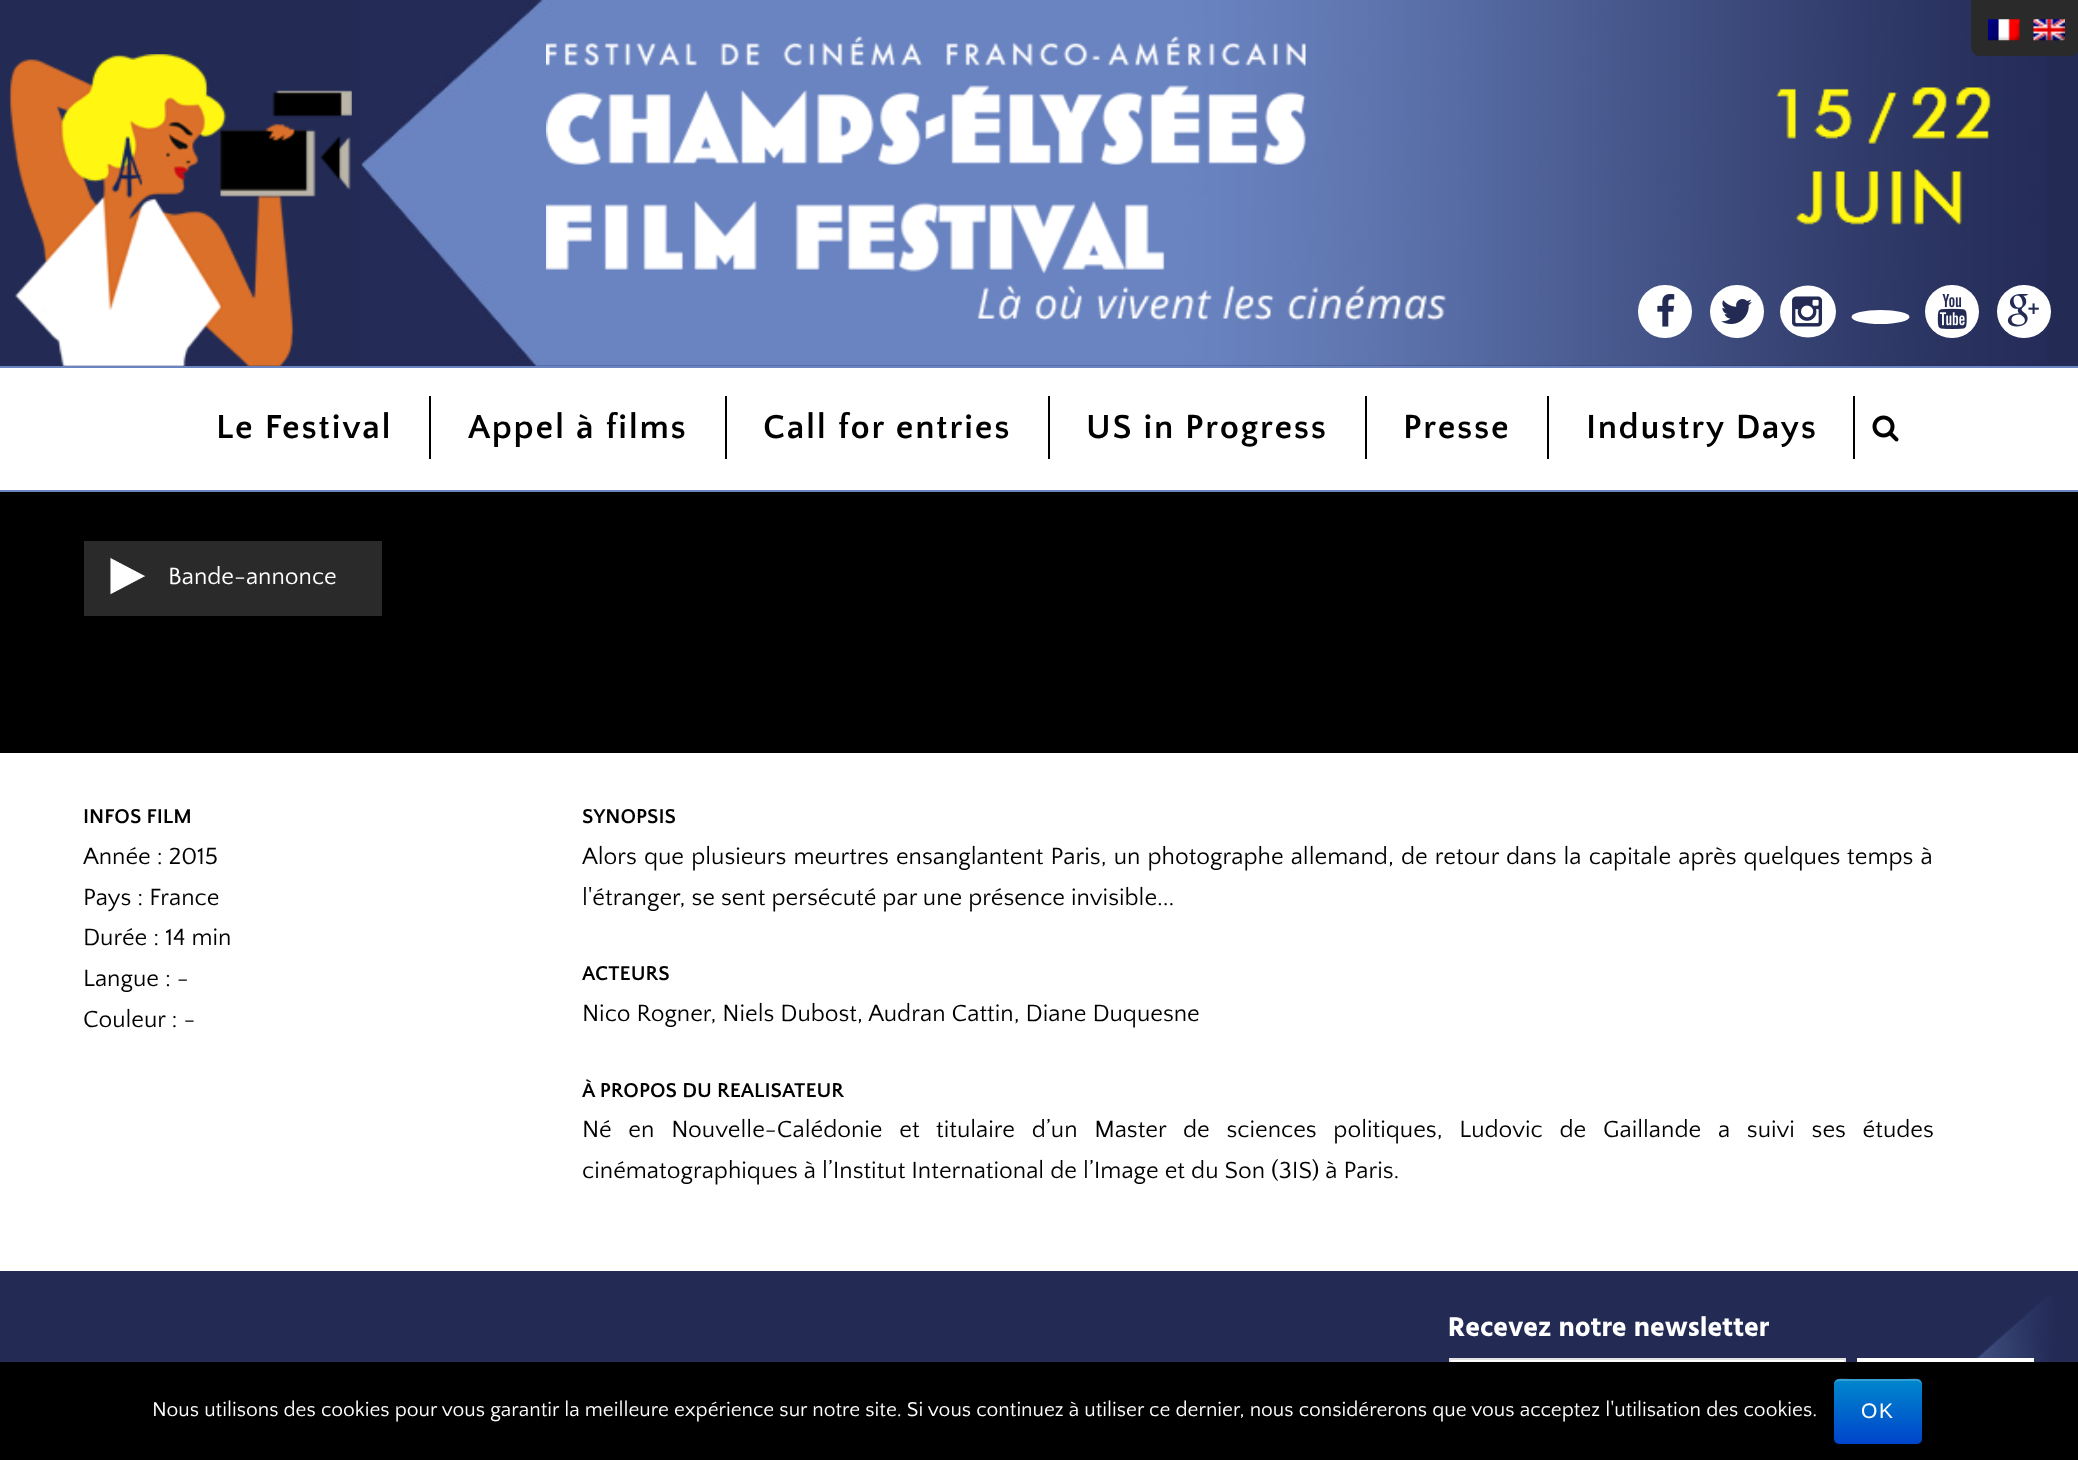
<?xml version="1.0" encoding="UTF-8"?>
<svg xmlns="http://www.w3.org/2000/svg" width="2078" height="1460">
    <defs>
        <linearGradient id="g1" gradientUnits="userSpaceOnUse" x1="1878" y1="1379" x2="1878" y2="1444"><stop offset="0" stop-color="#0088CC"/><stop offset="1" stop-color="#0044CC"/></linearGradient>
    </defs>
    <rect width="100%" height="100%" fill="#FFFFFF"/>
    <rect x="0" y="490" width="2078" height="2" fill="#6A84C1"/>
    <rect x="0" y="0" width="2078" height="366" fill="#232B55"/>
    <image x="360" y="0" width="1687" height="366" href="img_01.png"/>
    <image x="9" y="54" width="343" height="312" href="img_02.png"/>
    <image x="546" y="36" width="900" height="285" href="img_03.png"/>
    <image x="1776" y="87" width="215" height="138" href="img_04.png"/>
    <path d="M 1971 0 H 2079 V 47 C 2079 52 2075 56 2070 56 H 1980 C 1975 56 1971 52 1971 47 Z" fill="#2A2A2A"/>
    <image x="1988" y="19" width="32" height="22" href="img_05.png"/>
    <image x="2033" y="19" width="32" height="22" href="img_06.png"/>
    <rect x="1638" y="285" width="54" height="53" rx="26.5" fill="#FFFFFF"/>
    <image x="1657" y="294" width="18" height="33" href="img_07.png"/>
    <rect x="1710" y="285" width="54" height="53" rx="26.5" fill="#FFFFFF"/>
    <image x="1721" y="299" width="31" height="25" href="img_08.png"/>
    <ellipse cx="1808" cy="311.5" rx="28" ry="26" fill="#FFFFFF"/>
    <image x="1792" y="296" width="31" height="31" href="img_09.png"/>
    <ellipse cx="1880.5" cy="317" rx="29" ry="7" fill="#FFFFFF"/>
    <rect x="1925" y="285" width="54" height="53" rx="26.5" fill="#FFFFFF"/>
    <image x="1937" y="294" width="30" height="35" href="img_10.png"/>
    <rect x="1997" y="285" width="54" height="53" rx="26.5" fill="#FFFFFF"/>
    <image x="2007" y="294" width="32" height="33" href="img_11.png"/>
    <rect x="0" y="366" width="2078" height="2" fill="#6A84C1"/>
    <rect x="429" y="396" width="2" height="63" fill="#000000"/>
    <text x="216" y="438" font-family="Quattrocento Sans" font-size="35" font-weight="700" letter-spacing="1.75" fill="#000000">Le Festival</text>
    <rect x="725" y="396" width="2" height="63" fill="#000000"/>
    <text x="468" y="438" font-family="Quattrocento Sans" font-size="35" font-weight="700" letter-spacing="1.75" fill="#000000">Appel à films</text>
    <rect x="1048" y="396" width="2" height="63" fill="#000000"/>
    <text x="763" y="438" font-family="Quattrocento Sans" font-size="35" font-weight="700" letter-spacing="1.75" fill="#000000">Call for entries</text>
    <rect x="1365" y="396" width="2" height="63" fill="#000000"/>
    <text x="1086" y="438" font-family="Quattrocento Sans" font-size="35" font-weight="700" letter-spacing="1.75" fill="#000000">US in Progress</text>
    <rect x="1547" y="396" width="2" height="63" fill="#000000"/>
    <text x="1403" y="438" font-family="Quattrocento Sans" font-size="35" font-weight="700" letter-spacing="1.75" fill="#000000">Presse</text>
    <rect x="1853" y="396" width="2" height="63" fill="#000000"/>
    <text x="1586" y="438" font-family="Quattrocento Sans" font-size="35" font-weight="700" letter-spacing="1.75" fill="#000000">Industry Days</text>
    <image x="1872" y="415" width="27" height="27" href="img_12.png"/>
    <rect x="0" y="492" width="2078" height="261" fill="#000000"/>
    <rect x="84" y="541" width="298" height="75" fill="#2A2A2A"/>
    <image x="110" y="557" width="36" height="38" href="img_13.png"/>
    <text x="168" y="584" font-family="Quattrocento Sans" font-size="24.5" fill="#FFFFFF">Bande-annonce</text>
    <text x="83" y="823" font-family="Quattrocento Sans" font-size="21" font-weight="700" fill="#000000">INFOS FILM</text>
    <text font-family="Quattrocento Sans" font-size="24.5" fill="#000000">
        <tspan x="83" y="864">Année : 2015</tspan>
        <tspan x="83" y="905">Pays : France</tspan>
        <tspan x="83" y="945">Durée : 14 min</tspan>
        <tspan x="83" y="986">Langue : -</tspan>
        <tspan x="83" y="1027">Couleur : -</tspan>
    </text>
    <text x="582" y="823" font-family="Quattrocento Sans" font-size="21" font-weight="700" fill="#000000">SYNOPSIS</text>
    <text font-family="Quattrocento Sans" font-size="24.5" fill="#000000">
        <tspan x="582" y="864" word-spacing="1.1">Alors que plusieurs meurtres ensanglantent Paris, un photographe allemand, de retour dans la capitale après quelques temps à</tspan>
        <tspan x="582" y="905">l'étranger, se sent persécuté par une présence invisible...</tspan>
    </text>
    <text x="582" y="980" font-family="Quattrocento Sans" font-size="21" font-weight="700" fill="#000000">ACTEURS</text>
    <text x="582" y="1021" font-family="Quattrocento Sans" font-size="24.5" fill="#000000">Nico Rogner, Niels Dubost, Audran Cattin, Diane Duquesne</text>
    <text x="582" y="1097" font-family="Quattrocento Sans" font-size="21" font-weight="700" fill="#000000">À PROPOS DU REALISATEUR</text>
    <text font-family="Quattrocento Sans" font-size="24.5" fill="#000000">
        <tspan x="582" y="1137" word-spacing="10.75">Né en Nouvelle-Calédonie et titulaire d’un Master de sciences politiques, Ludovic de Gaillande a suivi ses études</tspan>
        <tspan x="582" y="1178">cinématographiques à l’Institut International de l’Image et du Son (3IS) à Paris.</tspan>
    </text>
    <rect x="0" y="1271" width="2078" height="91" fill="#232B55"/>
    <image x="1976" y="1296" width="78" height="66" href="img_14.png"/>
    <text x="1448" y="1336" font-family="Hind Vadodara" font-size="28" font-weight="700" fill="#FFFFFF">Recevez notre newsletter</text>
    <rect x="1451" y="1360" width="393" height="2" fill="#FDFDFD"/>
    <rect x="1450" y="1359" width="395" height="63" fill="none" stroke="#E3E3E3" stroke-width="2"/>
    <rect x="1857" y="1358" width="177" height="4" fill="#FFFFFF"/>
    <rect x="0" y="1362" width="2078" height="98" fill="#000000"/>
    <text x="152" y="1416" font-family="Quattrocento Sans" font-size="21" fill="#FFFFFF">Nous utilisons des cookies pour vous garantir la meilleure expérience sur notre site. Si vous continuez à utiliser ce dernier, nous considérerons que vous acceptez l'utilisation des cookies.</text>
    <rect x="1834" y="1379" width="88" height="65" rx="5" fill="url(#g1)"/>
    <path d="M 1839 1381 H 1916 C 1919 1381 1922 1383 1922 1386 C 1922 1376 1912 1379 1904 1379 H 1852 C 1844 1379 1834 1376 1834 1386 C 1834 1383 1836 1381 1839 1381 Z" fill="#FFFFFF" fill-opacity="0.2"/>
    <text x="1861" y="1418" font-family="Liberation Sans" font-size="21" letter-spacing="1.75" fill="#FFFFFF">OK</text>
</svg>
